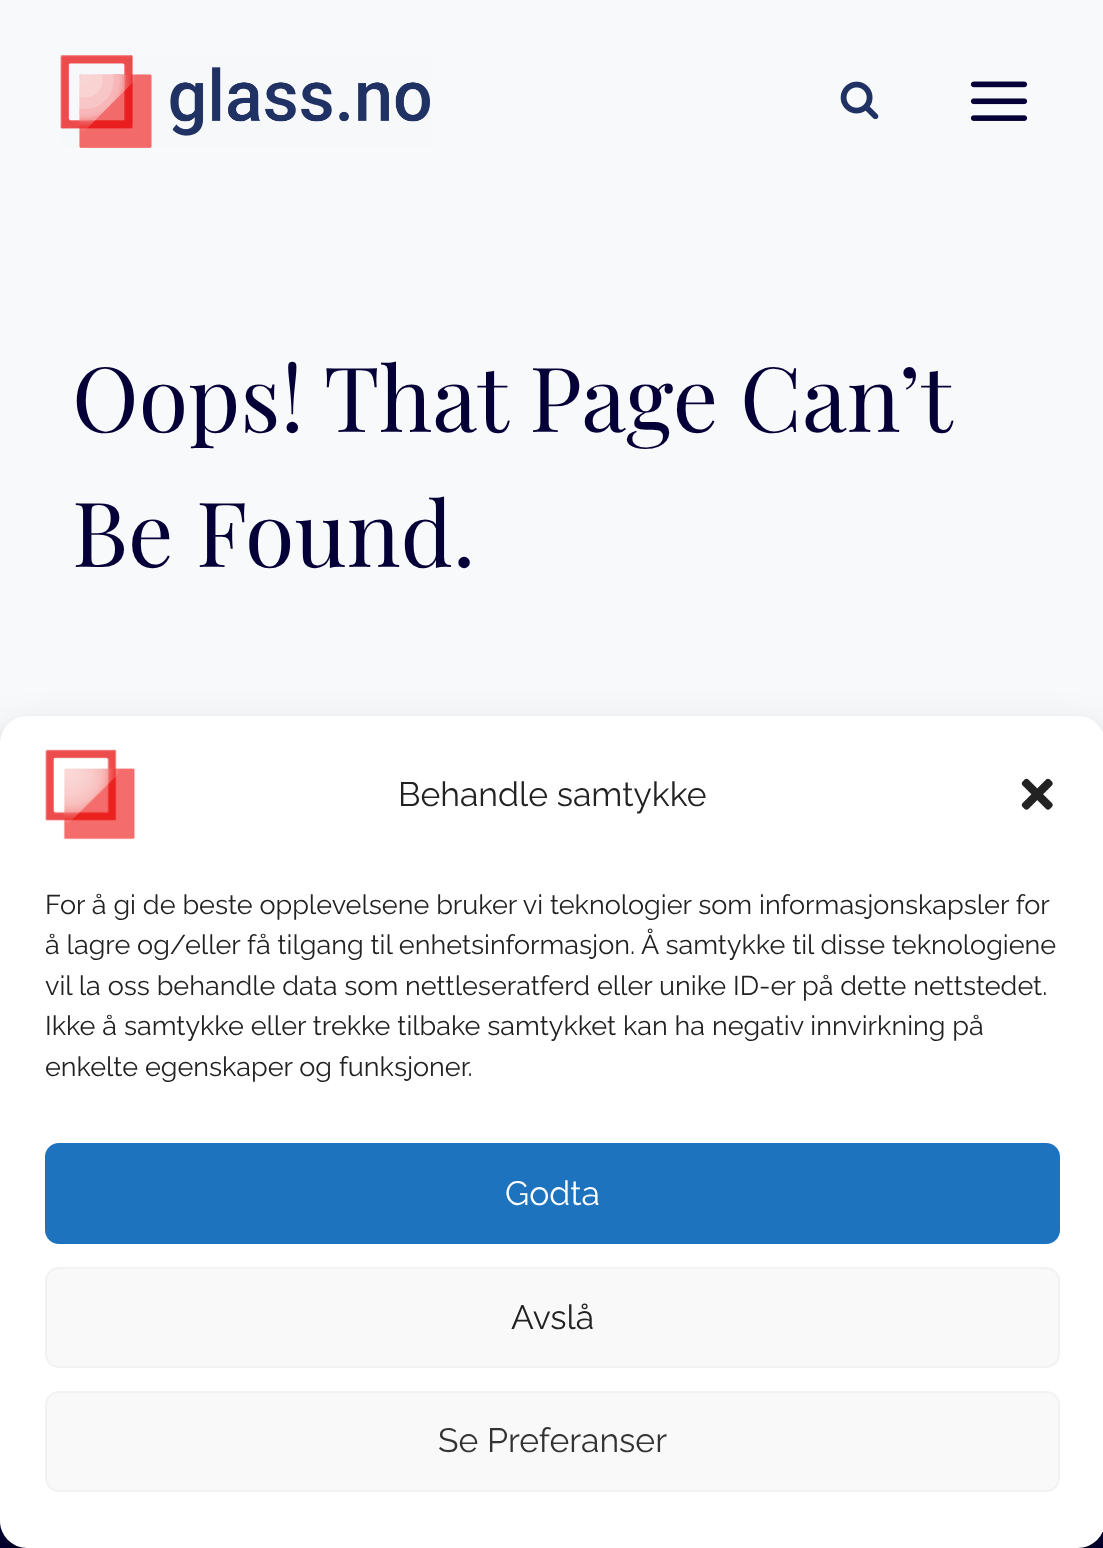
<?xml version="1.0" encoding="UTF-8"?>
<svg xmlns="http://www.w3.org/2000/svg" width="1103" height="1548">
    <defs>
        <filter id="blur1" x="-50%" y="-200%" width="200%" height="500%"><feGaussianBlur stdDeviation="7"/></filter>
        <filter id="blur2" x="-50%" y="-200%" width="200%" height="500%"><feGaussianBlur stdDeviation="22.5"/></filter>
    </defs>
    <rect width="100%" height="100%" fill="#F8F9FA"/>
    <image x="60" y="55" width="371" height="93" href="img_01.png"/>
    <image x="840" y="81" width="39" height="38" href="img_02.png"/>
    <image x="970" y="81" width="58" height="40" href="img_03.png"/>
    <text font-family="Playfair Display" font-size="90" fill="#040037">
        <tspan x="72" y="432" word-spacing="-0.5">Oops! That Page Can’t</tspan>
        <tspan x="72" y="567">Be Found.</tspan>
    </text>
    <rect x="0" y="1521" width="1103" height="27" fill="#040037"/>
    <rect x="0" y="729" width="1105" height="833" rx="27" fill="#000000" fill-opacity="0.23" filter="url(#blur1)"/>
    <rect x="0" y="738" width="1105" height="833" rx="27" fill="#000000" fill-opacity="0.19" filter="url(#blur2)"/>
    <rect x="0" y="716" width="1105" height="832" rx="27" fill="#FFFFFF"/>
    <image x="45" y="749" width="90" height="91" href="img_04.png"/>
    <text x="398" y="806" font-family="Raleway" font-size="33.75" fill="#222222">Behandle samtykke</text>
    <image x="1021" y="778" width="32" height="32" href="img_05.png"/>
    <text font-family="Raleway" font-size="27" fill="#222222">
        <tspan x="45" y="914">For å gi de beste opplevelsene bruker vi teknologier som informasjonskapsler for</tspan>
        <tspan x="45" y="954">å lagre og/eller få tilgang til enhetsinformasjon. Å samtykke til disse teknologiene</tspan>
        <tspan x="45" y="995">vil la oss behandle data som nettleseratferd eller unike ID-er på dette nettstedet.</tspan>
        <tspan x="45" y="1035">Ikke å samtykke eller trekke tilbake samtykket kan ha negativ innvirkning på</tspan>
        <tspan x="45" y="1076">enkelte egenskaper og funksjoner.</tspan>
    </text>
    <rect x="46" y="1144" width="1013" height="99" rx="13" fill="#1E73BE" stroke="#1E73BE" stroke-width="2"/>
    <text x="505" y="1205" font-family="Raleway" font-size="33.75" fill="#FFFFFF">Godta</text>
    <rect x="46" y="1268" width="1013" height="99" rx="13" fill="#F9F9F9" stroke="#F2F2F2" stroke-width="2"/>
    <text x="511" y="1329" font-family="Raleway" font-size="33.75" fill="#222222">Avslå</text>
    <rect x="46" y="1392" width="1013" height="99" rx="13" fill="#F9F9F9" stroke="#F2F2F2" stroke-width="2"/>
    <text x="438" y="1452" font-family="Raleway" font-size="33.75" fill="#333333">Se Preferanser</text>
</svg>
